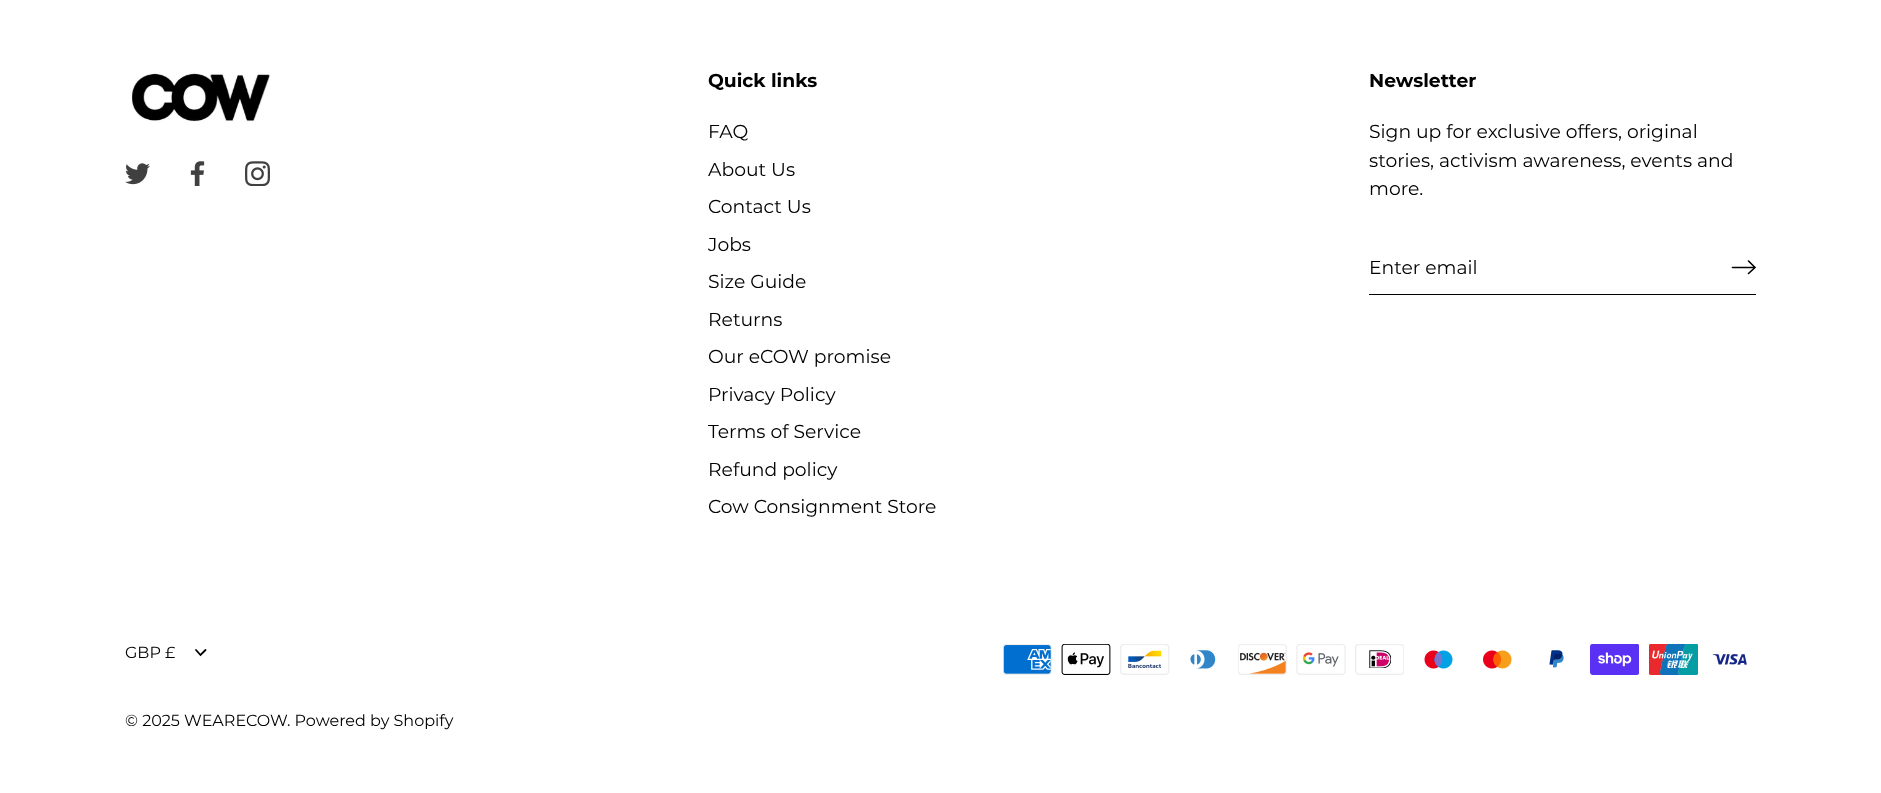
<?xml version="1.0" encoding="UTF-8"?>
<svg xmlns="http://www.w3.org/2000/svg" width="1881" height="793">
    <rect width="100%" height="100%" fill="#FFFFFF"/>
    <image x="131" y="72" width="139" height="50" href="img_01.png"/>
    <image x="125" y="163" width="25" height="22" href="img_02.png"/>
    <image x="190" y="161" width="15" height="25" href="img_03.png"/>
    <image x="245" y="161" width="25" height="25" href="img_04.png"/>
    <text x="708" y="87" font-family="Montserrat" font-size="18.75" font-weight="700" fill="#000000">Quick links</text>
    <text x="708" y="138" font-family="Montserrat" font-size="18.75" fill="#000000">FAQ</text>
    <text font-family="Montserrat" font-size="18.75" fill="#000000">
        <tspan x="708" y="176">About Us</tspan>
        <tspan x="708" y="213">Contact Us</tspan>
    </text>
    <text font-family="Montserrat" font-size="18.75" fill="#000000">
        <tspan x="708" y="251">Jobs</tspan>
        <tspan x="708" y="288">Size Guide</tspan>
    </text>
    <text font-family="Montserrat" font-size="18.75" fill="#000000">
        <tspan x="708" y="326">Returns</tspan>
        <tspan x="708" y="363">Our eCOW promise</tspan>
    </text>
    <text font-family="Montserrat" font-size="18.75" fill="#000000">
        <tspan x="708" y="401">Privacy Policy</tspan>
        <tspan x="708" y="438">Terms of Service</tspan>
    </text>
    <text font-family="Montserrat" font-size="18.75" fill="#000000">
        <tspan x="708" y="476">Refund policy</tspan>
        <tspan x="708" y="513">Cow Consignment Store</tspan>
    </text>
    <text x="1369" y="87" font-family="Montserrat" font-size="18.75" font-weight="700" fill="#000000">Newsletter</text>
    <text font-family="Montserrat" font-size="18.75" fill="#000000">
        <tspan x="1369" y="138">Sign up for exclusive offers, original</tspan>
        <tspan x="1369" y="167">stories, activism awareness, events and</tspan>
        <tspan x="1369" y="195">more.</tspan>
    </text>
    <rect x="1369" y="294" width="387" height="1" fill="#000000"/>
    <text x="1369" y="274" font-family="Montserrat" font-size="18.75" fill="#000000">Enter email</text>
    <path d="M 1748.5 273.5 L 1755 267.5 L 1748.5 261" fill="none" stroke="#000000" stroke-width="1.6" stroke-linecap="round"/>
    <path d="M 1754 267.5 H 1732.5" fill="none" stroke="#000000" stroke-width="1.6" stroke-linecap="round" stroke-linejoin="round"/>
    <text x="125" y="658" font-family="Montserrat" font-size="16" fill="#000000">GBP £</text>
    <path d="M 196 650 L 200.5 655 L 205.5 650" fill="none" stroke="#000000" stroke-width="1.8" stroke-linecap="round"/>
    <text x="125" y="726" font-family="Montserrat" font-size="16" fill="#000000">© 2025 WEARECOW</text>
    <text x="287" y="726" font-family="Montserrat" font-size="16" fill="#000000">. Powered by Shopify</text>
    <image x="1003" y="644" width="49" height="31" href="img_05.png"/>
    <image x="1061" y="644" width="50" height="31" href="img_06.png"/>
    <image x="1120" y="644" width="50" height="31" href="img_07.png"/>
    <image x="1190" y="650" width="26" height="19" href="img_08.png"/>
    <image x="1238" y="644" width="49" height="31" href="img_09.png"/>
    <image x="1296" y="644" width="50" height="31" href="img_10.png"/>
    <image x="1355" y="644" width="49" height="31" href="img_11.png"/>
    <image x="1424" y="650" width="29" height="19" href="img_12.png"/>
    <image x="1483" y="650" width="29" height="19" href="img_13.png"/>
    <image x="1549" y="650" width="15" height="18" href="img_14.png"/>
    <image x="1590" y="644" width="49" height="31" href="img_15.png"/>
    <image x="1649" y="644" width="49" height="31" href="img_16.png"/>
    <image x="1712" y="654" width="35" height="11" href="img_17.png"/>
</svg>
